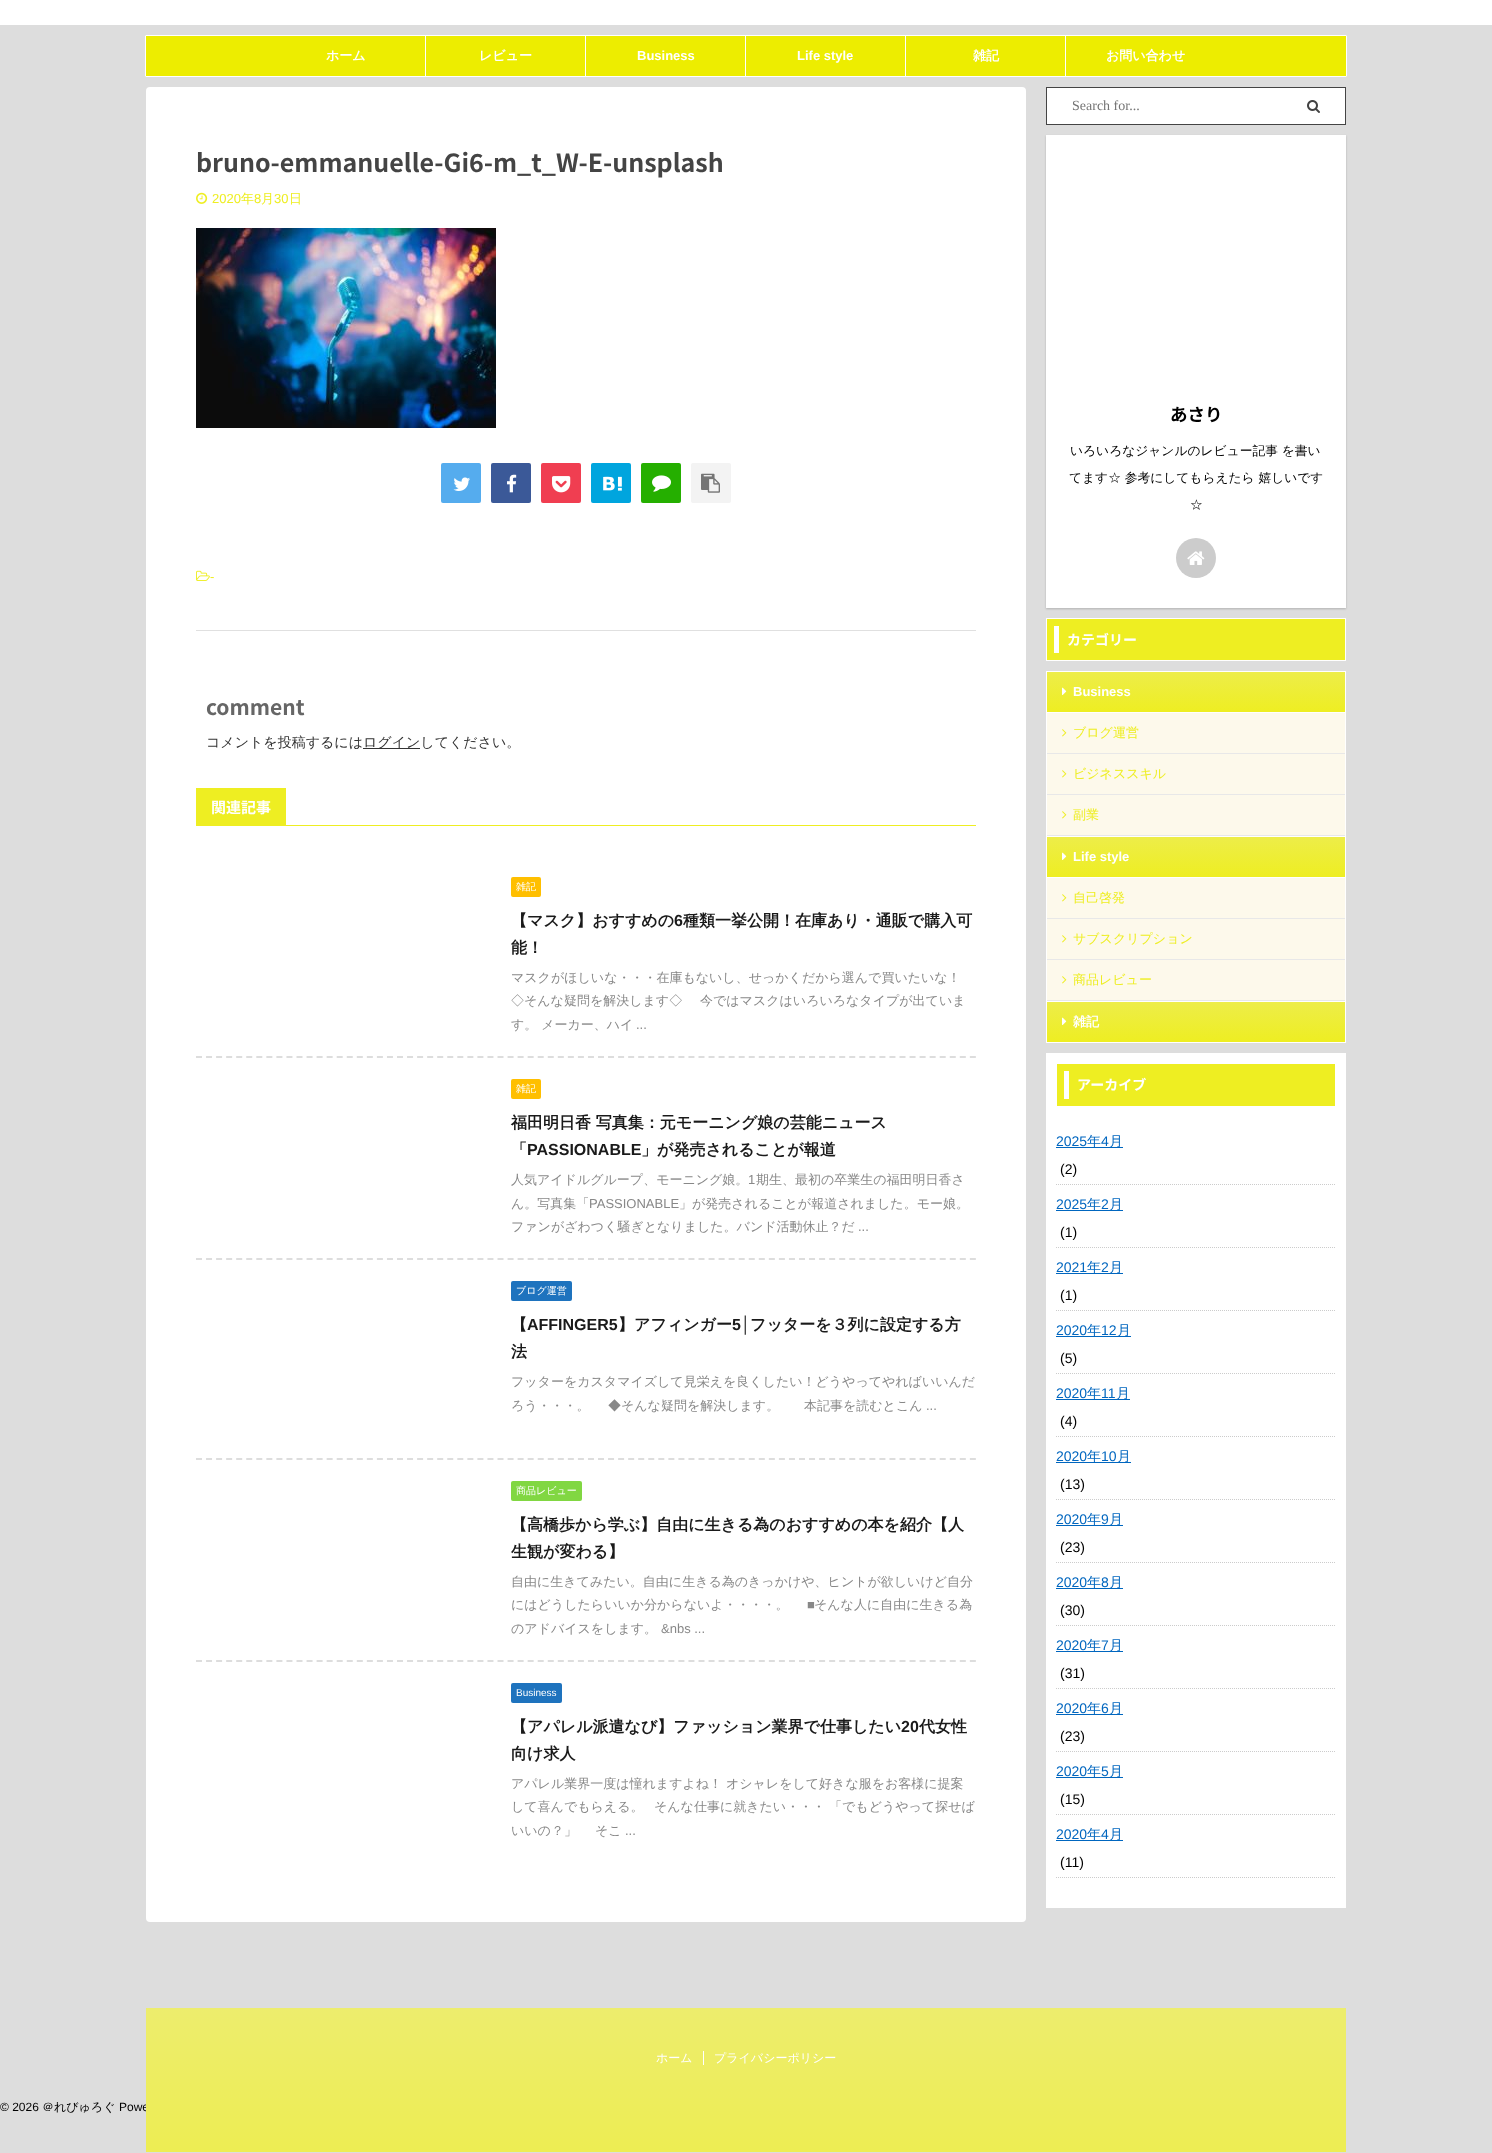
<?xml version="1.0" encoding="UTF-8"?>
<svg xmlns="http://www.w3.org/2000/svg" width="1492" height="2153">
    <defs>
        <filter id="blur1" x="-50%" y="-200%" width="200%" height="500%"><feGaussianBlur stdDeviation="1"/></filter>
        <linearGradient id="g1" gradientUnits="userSpaceOnUse" x1="1196" y1="672" x2="1196" y2="712"><stop offset="0" stop-color="#EDED49"/><stop offset="1" stop-color="#EEEE22"/></linearGradient>
        <linearGradient id="g2" gradientUnits="userSpaceOnUse" x1="1196" y1="837" x2="1196" y2="877"><stop offset="0" stop-color="#EDED49"/><stop offset="1" stop-color="#EEEE22"/></linearGradient>
        <linearGradient id="g3" gradientUnits="userSpaceOnUse" x1="1196" y1="1002" x2="1196" y2="1042"><stop offset="0" stop-color="#EDED49"/><stop offset="1" stop-color="#EEEE22"/></linearGradient>
        <linearGradient id="g4" gradientUnits="userSpaceOnUse" x1="746" y1="2008" x2="746" y2="2152"><stop offset="0" stop-color="#EDED6D"/><stop offset="1" stop-color="#EDED53"/></linearGradient>
    </defs>
    <rect width="100%" height="100%" fill="#DDDDDD"/>
    <rect x="0" y="0" width="1492" height="25" fill="#FFFFFF"/>
    <rect x="145.5" y="35.5" width="1201" height="41" rx="0.5" fill="#EDED00" stroke="#FFFFFF"/>
    <rect x="425" y="36" width="1" height="40" fill="#FFFFFF"/>
    <text x="326" y="60" font-family="WenQuanYi Zen Hei" font-size="13" font-weight="700" fill="#FFFFFF">ホーム</text>
    <rect x="585" y="36" width="1" height="40" fill="#FFFFFF"/>
    <text x="479" y="60" font-family="WenQuanYi Zen Hei" font-size="13" font-weight="700" fill="#FFFFFF">レビュー</text>
    <rect x="745" y="36" width="1" height="40" fill="#FFFFFF"/>
    <text x="637" y="60" font-family="Liberation Sans" font-size="13" font-weight="700" fill="#FFFFFF">Business</text>
    <rect x="905" y="36" width="1" height="40" fill="#FFFFFF"/>
    <text x="797" y="60" font-family="Liberation Sans" font-size="13" font-weight="700" fill="#FFFFFF">Life style</text>
    <rect x="1065" y="36" width="1" height="40" fill="#FFFFFF"/>
    <text x="973" y="60" font-family="WenQuanYi Zen Hei" font-size="13" font-weight="700" fill="#FFFFFF">雑記</text>
    <text x="1106" y="60" font-family="WenQuanYi Zen Hei" font-size="13" font-weight="700" fill="#FFFFFF">お問い合わせ</text>
    <rect x="146" y="87" width="880" height="1835" rx="4" fill="#FFFFFF"/>
    <text x="196" y="172" font-family="Noto Sans JP" font-size="25" font-weight="700" fill="#444444">bruno-emmanuelle-Gi6-m_t_W-E-unsplash</text>
    <image x="196" y="192" width="12" height="12" href="img_01.png"/>
    <text x="212" y="203" font-family="Liberation Sans" font-size="13" fill="#EEEE22">2020</text>
    <text x="241" y="203" font-family="WenQuanYi Zen Hei" font-size="13" font-weight="500" fill="#EEEE22">年</text>
    <text x="254" y="203" font-family="Liberation Sans" font-size="13" fill="#EEEE22">8</text>
    <text x="261" y="203" font-family="WenQuanYi Zen Hei" font-size="13" font-weight="500" fill="#EEEE22">月</text>
    <text x="274" y="203" font-family="Liberation Sans" font-size="13" fill="#EEEE22">30</text>
    <text x="289" y="203" font-family="WenQuanYi Zen Hei" font-size="13" font-weight="500" fill="#EEEE22">日</text>
    <image x="196" y="228" width="300" height="200" href="img_02.png"/>
    <rect x="441" y="463" width="40" height="40" rx="2" fill="#55ACEE"/>
    <image x="453" y="477" width="17" height="14" href="img_03.png"/>
    <rect x="491" y="463" width="40" height="40" rx="2" fill="#3B5998"/>
    <image x="507" y="474" width="10" height="19" href="img_04.png"/>
    <rect x="541" y="463" width="40" height="40" rx="2" fill="#F03E51"/>
    <image x="552" y="476" width="19" height="17" href="img_05.png"/>
    <rect x="591" y="463" width="40" height="40" rx="2" fill="#00A5DE"/>
    <image x="603" y="476" width="19" height="15" href="img_06.png"/>
    <rect x="641" y="463" width="40" height="40" rx="2" fill="#25AF00"/>
    <image x="652" y="475" width="19" height="17" href="img_07.png"/>
    <rect x="691" y="463" width="40" height="40" rx="2" fill="#F3F3F3"/>
    <image x="701" y="473" width="19" height="20" href="img_08.png"/>
    <image x="196" y="570" width="14" height="11" href="img_09.png"/>
    <text x="210" y="581" font-family="Liberation Sans" font-size="13" fill="#EEEE22">-</text>
    <rect x="196" y="630" width="780" height="1" fill="#E0E0E0"/>
    <text x="206" y="715" font-family="Noto Sans JP" font-size="21" font-weight="700" fill="#666666">comment</text>
    <text x="206" y="747" font-family="WenQuanYi Zen Hei" font-size="14" font-weight="500" fill="#333333">コメントを投稿するには</text>
    <rect x="363" y="748" width="57" height="1" fill="#333333"/>
    <text x="363" y="747" font-family="WenQuanYi Zen Hei" font-size="14" font-weight="500" fill="#333333">ログインしてください。</text>
    <rect x="196" y="825" width="780" height="1" fill="#EEEE22"/>
    <rect x="196" y="788" width="90" height="37" fill="#EEEE22"/>
    <text x="211" y="813" font-family="Noto Sans JP" font-size="15" font-weight="700" fill="#FFFFFF">関連記事</text>
    <path d="M 196 1057 H 976" fill="none" stroke="#DDDDDD" stroke-width="2" stroke-dasharray="6 4.05"/>
    <rect x="511" y="877" width="30" height="20" rx="2" fill="#FFBF00"/>
    <text x="516" y="890" font-family="WenQuanYi Zen Hei" font-size="10" font-weight="500" fill="#FFFFFF">雑記</text>
    <text x="511" y="926" font-family="WenQuanYi Zen Hei" font-size="16" font-weight="700" fill="#1A1A1A">【マスク】おすすめの</text>
    <text x="674" y="926" font-family="Liberation Sans" font-size="16" font-weight="700" fill="#1A1A1A">6</text>
    <text x="683" y="926" font-family="WenQuanYi Zen Hei" font-size="16" font-weight="700" fill="#1A1A1A">種類一挙公開！在庫あり・通販で購入可</text>
    <text x="511" y="953" font-family="WenQuanYi Zen Hei" font-size="16" font-weight="700" fill="#1A1A1A">能！</text>
    <text font-family="WenQuanYi Zen Hei" font-size="13" font-weight="500" fill="#888888">
        <tspan x="511" y="982">マスクがほしいな・・・在庫もないし、せっかくだから選んで買いたいな！</tspan>
        <tspan x="511" y="1005">◇そんな疑問を解決します◇</tspan>
    </text>
    <text x="700" y="1005" font-family="WenQuanYi Zen Hei" font-size="13" font-weight="500" fill="#888888">今ではマスクはいろいろなタイプが出ていま</text>
    <text x="511" y="1029" font-family="WenQuanYi Zen Hei" font-size="13" font-weight="500" fill="#888888">す。 メーカー、ハイ</text>
    <text x="636" y="1029" font-family="Liberation Sans" font-size="13" fill="#888888">...</text>
    <path d="M 196 1259 H 976" fill="none" stroke="#DDDDDD" stroke-width="2" stroke-dasharray="6 4.05"/>
    <rect x="511" y="1079" width="30" height="20" rx="2" fill="#FFBF00"/>
    <text x="516" y="1092" font-family="WenQuanYi Zen Hei" font-size="10" font-weight="500" fill="#FFFFFF">雑記</text>
    <text font-family="WenQuanYi Zen Hei" font-size="16" font-weight="700" fill="#1A1A1A">
        <tspan x="511" y="1128">福田明日香 写真集：元モーニング娘の芸能ニュース</tspan>
        <tspan x="511" y="1155">「</tspan>
    </text>
    <text x="527" y="1155" font-family="Liberation Sans" font-size="16" font-weight="700" fill="#1A1A1A">PASSIONABLE</text>
    <text x="641" y="1155" font-family="WenQuanYi Zen Hei" font-size="16" font-weight="700" fill="#1A1A1A">」が発売されることが報道</text>
    <text x="511" y="1184" font-family="WenQuanYi Zen Hei" font-size="13" font-weight="500" fill="#888888">人気アイドルグループ、モーニング娘。</text>
    <text x="748" y="1184" font-family="Liberation Sans" font-size="13" fill="#888888">1</text>
    <text x="756" y="1184" font-family="WenQuanYi Zen Hei" font-size="13" font-weight="500" fill="#888888">期生、最初の卒業生の福田明日香さ</text>
    <text x="511" y="1208" font-family="WenQuanYi Zen Hei" font-size="13" font-weight="500" fill="#888888">ん。写真集「</text>
    <text x="589" y="1208" font-family="Liberation Sans" font-size="13" fill="#888888">PASSIONABLE</text>
    <text x="679" y="1208" font-family="WenQuanYi Zen Hei" font-size="13" font-weight="500" fill="#888888">」が発売されることが報道されました。モー娘。</text>
    <text x="511" y="1231" font-family="WenQuanYi Zen Hei" font-size="13" font-weight="500" fill="#888888">ファンがざわつく騒ぎとなりました。バンド活動休止？だ</text>
    <text x="858" y="1231" font-family="Liberation Sans" font-size="13" fill="#888888">...</text>
    <path d="M 196 1459 H 976" fill="none" stroke="#DDDDDD" stroke-width="2" stroke-dasharray="6 4.05"/>
    <rect x="511" y="1281" width="61" height="20" rx="2" fill="#1E73BE"/>
    <text x="516" y="1294" font-family="WenQuanYi Zen Hei" font-size="10" font-weight="500" fill="#FFFFFF">ブログ運営</text>
    <text x="511" y="1330" font-family="WenQuanYi Zen Hei" font-size="16" font-weight="700" fill="#1A1A1A">【</text>
    <text x="527" y="1330" font-family="Liberation Sans" font-size="16" font-weight="700" fill="#1A1A1A">AFFINGER5</text>
    <text x="618" y="1330" font-family="WenQuanYi Zen Hei" font-size="16" font-weight="700" fill="#1A1A1A">】アフィンガー</text>
    <text x="732" y="1330" font-family="Liberation Sans" font-size="16" font-weight="700" fill="#1A1A1A">5│</text>
    <text x="750" y="1330" font-family="WenQuanYi Zen Hei" font-size="16" font-weight="700" fill="#1A1A1A">フッターを３列に設定する方</text>
    <text x="511" y="1357" font-family="WenQuanYi Zen Hei" font-size="16" font-weight="700" fill="#1A1A1A">法</text>
    <text font-family="WenQuanYi Zen Hei" font-size="13" font-weight="500" fill="#888888">
        <tspan x="511" y="1386">フッターをカスタマイズして見栄えを良くしたい！どうやってやればいいんだ</tspan>
        <tspan x="511" y="1410">ろう・・・。</tspan>
    </text>
    <text x="608" y="1410" font-family="WenQuanYi Zen Hei" font-size="13" font-weight="500" fill="#888888">◆そんな疑問を解決します。</text>
    <text x="804" y="1410" font-family="WenQuanYi Zen Hei" font-size="13" font-weight="500" fill="#888888">本記事を読むとこん</text>
    <text x="926" y="1410" font-family="Liberation Sans" font-size="13" fill="#888888">...</text>
    <path d="M 196 1661 H 976" fill="none" stroke="#DDDDDD" stroke-width="2" stroke-dasharray="6 4.05"/>
    <rect x="511" y="1481" width="71" height="20" rx="2" fill="#81D742"/>
    <text x="516" y="1494" font-family="WenQuanYi Zen Hei" font-size="10" font-weight="500" fill="#FFFFFF">商品レビュー</text>
    <text font-family="WenQuanYi Zen Hei" font-size="16" font-weight="700" fill="#1A1A1A">
        <tspan x="511" y="1530">【高橋歩から学ぶ】自由に生きる為のおすすめの本を紹介【人</tspan>
        <tspan x="511" y="1557">生観が変わる】</tspan>
    </text>
    <text font-family="WenQuanYi Zen Hei" font-size="13" font-weight="500" fill="#888888">
        <tspan x="511" y="1586">自由に生きてみたい。自由に生きる為のきっかけや、ヒントが欲しいけど自分</tspan>
        <tspan x="511" y="1609">にはどうしたらいいか分からないよ・・・・。</tspan>
    </text>
    <text x="807" y="1609" font-family="Liberation Sans" font-size="13" fill="#888888">■</text>
    <text x="814" y="1609" font-family="WenQuanYi Zen Hei" font-size="13" font-weight="500" fill="#888888">そんな人に自由に生きる為</text>
    <text x="511" y="1633" font-family="WenQuanYi Zen Hei" font-size="13" font-weight="500" fill="#888888">のアドバイスをします。</text>
    <text x="661" y="1633" font-family="Liberation Sans" font-size="13" fill="#888888">&amp;nbs ...</text>
    <rect x="511" y="1683" width="51" height="20" rx="2" fill="#1E73BE"/>
    <text x="516" y="1696" font-family="Liberation Sans" font-size="10" fill="#FFFFFF">Business</text>
    <text x="511" y="1732" font-family="WenQuanYi Zen Hei" font-size="16" font-weight="700" fill="#1A1A1A">【アパレル派遣なび】ファッション業界で仕事したい</text>
    <text x="901" y="1732" font-family="Liberation Sans" font-size="16" font-weight="700" fill="#1A1A1A">20</text>
    <text x="919" y="1732" font-family="WenQuanYi Zen Hei" font-size="16" font-weight="700" fill="#1A1A1A">代女性</text>
    <text x="511" y="1759" font-family="WenQuanYi Zen Hei" font-size="16" font-weight="700" fill="#1A1A1A">向け求人</text>
    <text font-family="WenQuanYi Zen Hei" font-size="13" font-weight="500" fill="#888888">
        <tspan x="511" y="1788">アパレル業界一度は憧れますよね！ オシャレをして好きな服をお客様に提案</tspan>
        <tspan x="511" y="1811">して喜んでもらえる。</tspan>
    </text>
    <text x="654" y="1811" font-family="WenQuanYi Zen Hei" font-size="13" font-weight="500" fill="#888888">そんな仕事に就きたい・・・ 「でもどうやって探せば</text>
    <text x="511" y="1835" font-family="WenQuanYi Zen Hei" font-size="13" font-weight="500" fill="#888888">いいの？」</text>
    <text x="595" y="1835" font-family="WenQuanYi Zen Hei" font-size="13" font-weight="500" fill="#888888">そこ</text>
    <text x="625" y="1835" font-family="Liberation Sans" font-size="13" fill="#888888">...</text>
    <rect x="1046.5" y="87.5" width="299" height="37" fill="none" stroke="#444444"/>
    <rect x="1047" y="88" width="298" height="36" fill="#FFFFFF"/>
    <text x="1072" y="110" font-family="Liberation Serif" font-size="14" fill="#757575">Search for...</text>
    <image x="1307" y="100" width="13" height="13" href="img_10.png"/>
    <rect x="1046" y="136" width="300" height="473" fill="#000000" fill-opacity="0.2" filter="url(#blur1)"/>
    <rect x="1046" y="135" width="300" height="473" fill="#FFFFFF"/>
    <text x="1170" y="421" font-family="Noto Sans JP" font-size="17.5" font-weight="700" fill="#000000">あさり</text>
    <text x="1070" y="455" font-family="WenQuanYi Zen Hei" font-size="12.75" font-weight="500" fill="#000000">いろいろなジャンルのレビュー記事 を書い</text>
    <text x="1069" y="482" font-family="WenQuanYi Zen Hei" font-size="12.75" font-weight="500" fill="#000000">てます☆ 参考にしてもらえたら 嬉しいです</text>
    <text x="1190" y="509" font-family="WenQuanYi Zen Hei" font-size="12.75" font-weight="500" fill="#000000">☆</text>
    <circle cx="1196" cy="558" r="20" fill="#CCCCCC"/>
    <image x="1187" y="551" width="18" height="14" href="img_11.png"/>
    <rect x="1046.5" y="618.5" width="299" height="42" fill="#EEEE22" stroke="#FFFFFF"/>
    <rect x="1054" y="626" width="5" height="27" fill="#FFFFFF"/>
    <text x="1067" y="645" font-family="Noto Sans JP" font-size="14" font-weight="700" fill="#FFFFFF">カテゴリー</text>
    <rect x="1047" y="713" width="298" height="287" fill="#FDF9EB"/>
    <rect x="1046" y="671" width="300" height="1" fill="#FFFFFF"/>
    <rect x="1345" y="671" width="1" height="165" fill="#FFFFFF"/>
    <rect x="1046" y="671" width="1" height="165" fill="#FFFFFF"/>
    <rect x="1047" y="672" width="298" height="40" fill="url(#g1)"/>
    <image x="1062" y="687" width="5" height="8" href="img_12.png"/>
    <text x="1073" y="696" font-family="Liberation Sans" font-size="13" font-weight="700" fill="#FFFFFF">Business</text>
    <rect x="1047" y="712" width="298" height="1" fill="#FFFFFF"/>
    <rect x="1047" y="753" width="298" height="1" fill="#E8E8E8"/>
    <image x="1062" y="729" width="5" height="8" href="img_13.png"/>
    <text x="1073" y="737" font-family="WenQuanYi Zen Hei" font-size="13" font-weight="500" fill="#EEEE22">ブログ運営</text>
    <rect x="1047" y="794" width="298" height="1" fill="#E8E8E8"/>
    <image x="1062" y="770" width="5" height="8" href="img_13.png"/>
    <text x="1073" y="778" font-family="WenQuanYi Zen Hei" font-size="13" font-weight="500" fill="#EEEE22">ビジネススキル</text>
    <rect x="1047" y="835" width="298" height="1" fill="#E8E8E8"/>
    <image x="1062" y="811" width="5" height="8" href="img_13.png"/>
    <text x="1073" y="819" font-family="WenQuanYi Zen Hei" font-size="13" font-weight="500" fill="#EEEE22">副業</text>
    <rect x="1046" y="836" width="300" height="1" fill="#FFFFFF"/>
    <rect x="1345" y="836" width="1" height="165" fill="#FFFFFF"/>
    <rect x="1046" y="836" width="1" height="165" fill="#FFFFFF"/>
    <rect x="1047" y="837" width="298" height="40" fill="url(#g2)"/>
    <image x="1062" y="852" width="5" height="8" href="img_12.png"/>
    <text x="1073" y="861" font-family="Liberation Sans" font-size="13" font-weight="700" fill="#FFFFFF">Life style</text>
    <rect x="1047" y="877" width="298" height="1" fill="#FFFFFF"/>
    <rect x="1047" y="918" width="298" height="1" fill="#E8E8E8"/>
    <image x="1062" y="894" width="5" height="8" href="img_13.png"/>
    <text x="1073" y="902" font-family="WenQuanYi Zen Hei" font-size="13" font-weight="500" fill="#EEEE22">自己啓発</text>
    <rect x="1047" y="959" width="298" height="1" fill="#E8E8E8"/>
    <image x="1062" y="935" width="5" height="8" href="img_13.png"/>
    <text x="1073" y="943" font-family="WenQuanYi Zen Hei" font-size="13" font-weight="500" fill="#EEEE22">サブスクリプション</text>
    <rect x="1047" y="1000" width="298" height="1" fill="#E8E8E8"/>
    <image x="1062" y="976" width="5" height="8" href="img_13.png"/>
    <text x="1073" y="984" font-family="WenQuanYi Zen Hei" font-size="13" font-weight="500" fill="#EEEE22">商品レビュー</text>
    <rect x="1046.5" y="1001.5" width="299" height="41" fill="none" stroke="#FFFFFF"/>
    <rect x="1047" y="1002" width="298" height="40" fill="url(#g3)"/>
    <image x="1062" y="1017" width="5" height="8" href="img_12.png"/>
    <text x="1073" y="1026" font-family="WenQuanYi Zen Hei" font-size="13" font-weight="700" fill="#FFFFFF">雑記</text>
    <rect x="1046" y="1053" width="300" height="855" fill="#FFFFFF"/>
    <rect x="1057" y="1064" width="278" height="42" fill="#EEEE22"/>
    <rect x="1064" y="1071" width="5" height="28" fill="#FFFFFF"/>
    <text x="1077" y="1090" font-family="Noto Sans JP" font-size="14" font-weight="700" fill="#FFFFFF">アーカイブ</text>
    <path d="M 1056 1184.5 H 1336" fill="none" stroke="#CCCCCC" stroke-dasharray="1 1"/>
    <text x="1056" y="1146" font-family="Liberation Sans" font-size="14" fill="#0066BF">2025</text>
    <rect x="1056" y="1147" width="67" height="1" fill="#0066BF"/>
    <text x="1087" y="1146" font-family="WenQuanYi Zen Hei" font-size="14" font-weight="500" fill="#0066BF">年</text>
    <text x="1101" y="1146" font-family="Liberation Sans" font-size="14" fill="#0066BF">4</text>
    <text x="1109" y="1146" font-family="WenQuanYi Zen Hei" font-size="14" font-weight="500" fill="#0066BF">月</text>
    <text x="1060" y="1174" font-family="Liberation Sans" font-size="14" fill="#000000">(2)</text>
    <path d="M 1056 1247.5 H 1336" fill="none" stroke="#CCCCCC" stroke-dasharray="1 1"/>
    <text x="1056" y="1209" font-family="Liberation Sans" font-size="14" fill="#0066BF">2025</text>
    <rect x="1056" y="1210" width="67" height="1" fill="#0066BF"/>
    <text x="1087" y="1209" font-family="WenQuanYi Zen Hei" font-size="14" font-weight="500" fill="#0066BF">年</text>
    <text x="1101" y="1209" font-family="Liberation Sans" font-size="14" fill="#0066BF">2</text>
    <text x="1109" y="1209" font-family="WenQuanYi Zen Hei" font-size="14" font-weight="500" fill="#0066BF">月</text>
    <text x="1060" y="1237" font-family="Liberation Sans" font-size="14" fill="#000000">(1)</text>
    <path d="M 1056 1310.5 H 1336" fill="none" stroke="#CCCCCC" stroke-dasharray="1 1"/>
    <text x="1056" y="1272" font-family="Liberation Sans" font-size="14" fill="#0066BF">2021</text>
    <rect x="1056" y="1273" width="67" height="1" fill="#0066BF"/>
    <text x="1087" y="1272" font-family="WenQuanYi Zen Hei" font-size="14" font-weight="500" fill="#0066BF">年</text>
    <text x="1101" y="1272" font-family="Liberation Sans" font-size="14" fill="#0066BF">2</text>
    <text x="1109" y="1272" font-family="WenQuanYi Zen Hei" font-size="14" font-weight="500" fill="#0066BF">月</text>
    <text x="1060" y="1300" font-family="Liberation Sans" font-size="14" fill="#000000">(1)</text>
    <path d="M 1056 1373.5 H 1336" fill="none" stroke="#CCCCCC" stroke-dasharray="1 1"/>
    <text x="1056" y="1335" font-family="Liberation Sans" font-size="14" fill="#0066BF">2020</text>
    <rect x="1056" y="1336" width="75" height="1" fill="#0066BF"/>
    <text x="1087" y="1335" font-family="WenQuanYi Zen Hei" font-size="14" font-weight="500" fill="#0066BF">年</text>
    <text x="1101" y="1335" font-family="Liberation Sans" font-size="14" fill="#0066BF">12</text>
    <text x="1117" y="1335" font-family="WenQuanYi Zen Hei" font-size="14" font-weight="500" fill="#0066BF">月</text>
    <text x="1060" y="1363" font-family="Liberation Sans" font-size="14" fill="#000000">(5)</text>
    <path d="M 1056 1436.5 H 1336" fill="none" stroke="#CCCCCC" stroke-dasharray="1 1"/>
    <text x="1056" y="1398" font-family="Liberation Sans" font-size="14" fill="#0066BF">2020</text>
    <rect x="1056" y="1399" width="74" height="1" fill="#0066BF"/>
    <text x="1087" y="1398" font-family="WenQuanYi Zen Hei" font-size="14" font-weight="500" fill="#0066BF">年</text>
    <text x="1101" y="1398" font-family="Liberation Sans" font-size="14" fill="#0066BF">11</text>
    <text x="1116" y="1398" font-family="WenQuanYi Zen Hei" font-size="14" font-weight="500" fill="#0066BF">月</text>
    <text x="1060" y="1426" font-family="Liberation Sans" font-size="14" fill="#000000">(4)</text>
    <path d="M 1056 1499.5 H 1336" fill="none" stroke="#CCCCCC" stroke-dasharray="1 1"/>
    <text x="1056" y="1461" font-family="Liberation Sans" font-size="14" fill="#0066BF">2020</text>
    <rect x="1056" y="1462" width="75" height="1" fill="#0066BF"/>
    <text x="1087" y="1461" font-family="WenQuanYi Zen Hei" font-size="14" font-weight="500" fill="#0066BF">年</text>
    <text x="1101" y="1461" font-family="Liberation Sans" font-size="14" fill="#0066BF">10</text>
    <text x="1117" y="1461" font-family="WenQuanYi Zen Hei" font-size="14" font-weight="500" fill="#0066BF">月</text>
    <text x="1060" y="1489" font-family="Liberation Sans" font-size="14" fill="#000000">(13)</text>
    <path d="M 1056 1562.5 H 1336" fill="none" stroke="#CCCCCC" stroke-dasharray="1 1"/>
    <text x="1056" y="1524" font-family="Liberation Sans" font-size="14" fill="#0066BF">2020</text>
    <rect x="1056" y="1525" width="67" height="1" fill="#0066BF"/>
    <text x="1087" y="1524" font-family="WenQuanYi Zen Hei" font-size="14" font-weight="500" fill="#0066BF">年</text>
    <text x="1101" y="1524" font-family="Liberation Sans" font-size="14" fill="#0066BF">9</text>
    <text x="1109" y="1524" font-family="WenQuanYi Zen Hei" font-size="14" font-weight="500" fill="#0066BF">月</text>
    <text x="1060" y="1552" font-family="Liberation Sans" font-size="14" fill="#000000">(23)</text>
    <path d="M 1056 1625.5 H 1336" fill="none" stroke="#CCCCCC" stroke-dasharray="1 1"/>
    <text x="1056" y="1587" font-family="Liberation Sans" font-size="14" fill="#0066BF">2020</text>
    <rect x="1056" y="1588" width="67" height="1" fill="#0066BF"/>
    <text x="1087" y="1587" font-family="WenQuanYi Zen Hei" font-size="14" font-weight="500" fill="#0066BF">年</text>
    <text x="1101" y="1587" font-family="Liberation Sans" font-size="14" fill="#0066BF">8</text>
    <text x="1109" y="1587" font-family="WenQuanYi Zen Hei" font-size="14" font-weight="500" fill="#0066BF">月</text>
    <text x="1060" y="1615" font-family="Liberation Sans" font-size="14" fill="#000000">(30)</text>
    <path d="M 1056 1688.5 H 1336" fill="none" stroke="#CCCCCC" stroke-dasharray="1 1"/>
    <text x="1056" y="1650" font-family="Liberation Sans" font-size="14" fill="#0066BF">2020</text>
    <rect x="1056" y="1651" width="67" height="1" fill="#0066BF"/>
    <text x="1087" y="1650" font-family="WenQuanYi Zen Hei" font-size="14" font-weight="500" fill="#0066BF">年</text>
    <text x="1101" y="1650" font-family="Liberation Sans" font-size="14" fill="#0066BF">7</text>
    <text x="1109" y="1650" font-family="WenQuanYi Zen Hei" font-size="14" font-weight="500" fill="#0066BF">月</text>
    <text x="1060" y="1678" font-family="Liberation Sans" font-size="14" fill="#000000">(31)</text>
    <path d="M 1056 1751.5 H 1336" fill="none" stroke="#CCCCCC" stroke-dasharray="1 1"/>
    <text x="1056" y="1713" font-family="Liberation Sans" font-size="14" fill="#0066BF">2020</text>
    <rect x="1056" y="1714" width="67" height="1" fill="#0066BF"/>
    <text x="1087" y="1713" font-family="WenQuanYi Zen Hei" font-size="14" font-weight="500" fill="#0066BF">年</text>
    <text x="1101" y="1713" font-family="Liberation Sans" font-size="14" fill="#0066BF">6</text>
    <text x="1109" y="1713" font-family="WenQuanYi Zen Hei" font-size="14" font-weight="500" fill="#0066BF">月</text>
    <text x="1060" y="1741" font-family="Liberation Sans" font-size="14" fill="#000000">(23)</text>
    <path d="M 1056 1814.5 H 1336" fill="none" stroke="#CCCCCC" stroke-dasharray="1 1"/>
    <text x="1056" y="1776" font-family="Liberation Sans" font-size="14" fill="#0066BF">2020</text>
    <rect x="1056" y="1777" width="67" height="1" fill="#0066BF"/>
    <text x="1087" y="1776" font-family="WenQuanYi Zen Hei" font-size="14" font-weight="500" fill="#0066BF">年</text>
    <text x="1101" y="1776" font-family="Liberation Sans" font-size="14" fill="#0066BF">5</text>
    <text x="1109" y="1776" font-family="WenQuanYi Zen Hei" font-size="14" font-weight="500" fill="#0066BF">月</text>
    <text x="1060" y="1804" font-family="Liberation Sans" font-size="14" fill="#000000">(15)</text>
    <path d="M 1056 1877.5 H 1336" fill="none" stroke="#CCCCCC" stroke-dasharray="1 1"/>
    <text x="1056" y="1839" font-family="Liberation Sans" font-size="14" fill="#0066BF">2020</text>
    <rect x="1056" y="1840" width="67" height="1" fill="#0066BF"/>
    <text x="1087" y="1839" font-family="WenQuanYi Zen Hei" font-size="14" font-weight="500" fill="#0066BF">年</text>
    <text x="1101" y="1839" font-family="Liberation Sans" font-size="14" fill="#0066BF">4</text>
    <text x="1109" y="1839" font-family="WenQuanYi Zen Hei" font-size="14" font-weight="500" fill="#0066BF">月</text>
    <text x="1060" y="1867" font-family="Liberation Sans" font-size="14" fill="#000000">(11)</text>
    <text x="119" y="2111" font-family="Liberation Sans" font-size="12" fill="#000000">Powe</text>
    <rect x="146" y="2008" width="1200" height="144" fill="url(#g4)"/>
    <text x="656" y="2062" font-family="WenQuanYi Zen Hei" font-size="12" font-weight="500" fill="#FFFFFF">ホーム</text>
    <rect x="703" y="2051" width="1" height="14" fill="#FFFFFF"/>
    <text x="714" y="2062" font-family="WenQuanYi Zen Hei" font-size="12" font-weight="500" fill="#FFFFFF">プライバシーポリシー</text>
    <text x="0" y="2111" font-family="Liberation Sans" font-size="12" fill="#000000">© 2026</text>
    <text x="42" y="2111" font-family="WenQuanYi Zen Hei" font-size="12" font-weight="500" fill="#000000">＠れびゅろぐ</text>
</svg>
